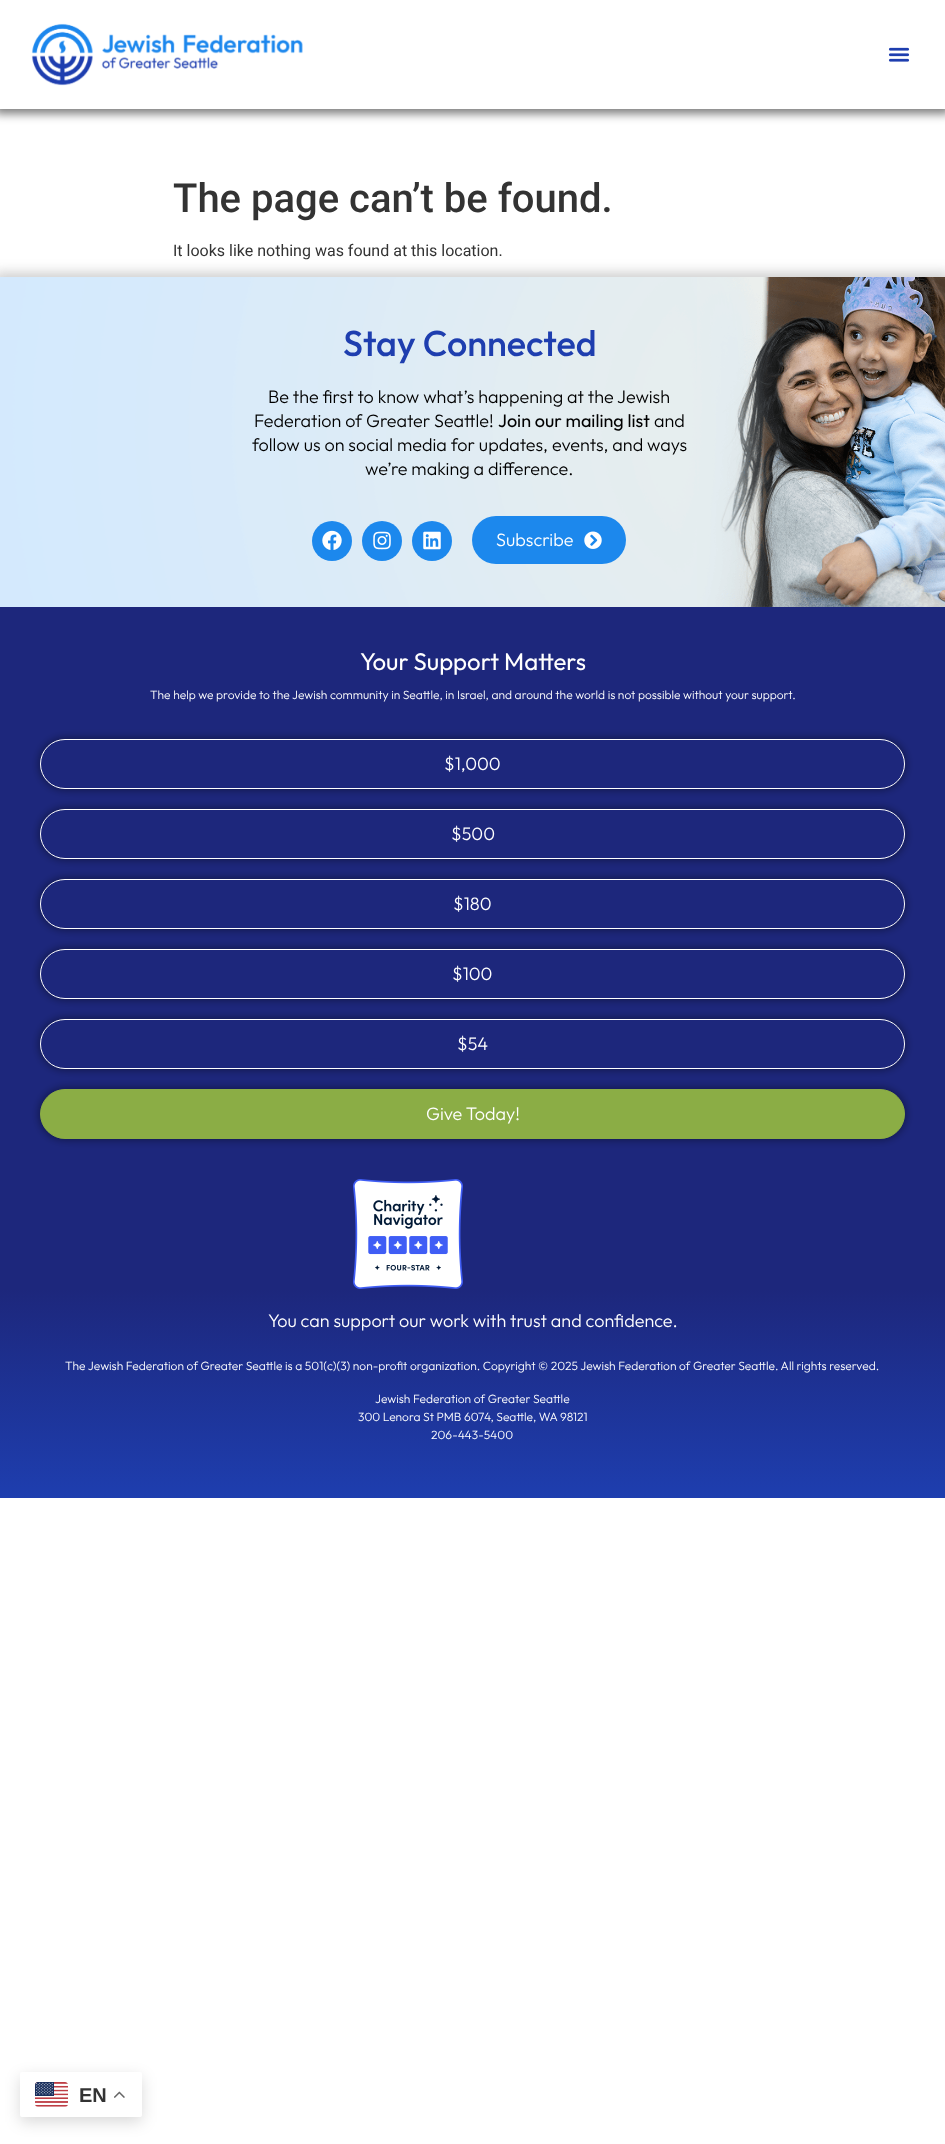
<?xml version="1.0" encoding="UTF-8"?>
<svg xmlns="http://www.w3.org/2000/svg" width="945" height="2144">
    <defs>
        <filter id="blur1" x="-50%" y="-200%" width="200%" height="500%"><feGaussianBlur stdDeviation="5"/></filter>
        <filter id="blur2" x="-50%" y="-200%" width="200%" height="500%"><feGaussianBlur stdDeviation="6"/></filter>
        <linearGradient id="g1" gradientUnits="userSpaceOnUse" x1="473" y1="1289" x2="473" y2="1498"><stop offset="0" stop-color="#1D277C"/><stop offset="1" stop-color="#1E3EAF"/></linearGradient>
        <filter id="blur3" x="-50%" y="-200%" width="200%" height="500%"><feGaussianBlur stdDeviation="7.5"/></filter>
    </defs>
    <rect width="100%" height="100%" fill="#FFFFFF"/>
    <rect x="-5" y="-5" width="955" height="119" fill="#000000" fill-opacity="0.5" filter="url(#blur1)"/>
    <rect x="0" y="0" width="945" height="109" fill="#FFFFFF"/>
    <image x="31" y="23" width="272" height="63" href="img_01.png"/>
    <image x="888" y="47" width="22" height="15" href="img_02.png"/>
    <text x="173" y="212" font-family="Roboto" font-size="40" font-weight="500" fill="#333333">The page can’t be found.</text>
    <text x="173" y="256" font-family="Roboto" font-size="16" fill="#333333">It looks like nothing was found at this location.</text>
    <rect x="-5" y="272" width="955" height="340" fill="#A3A3A3" fill-opacity="0.5" filter="url(#blur2)"/>
    <image x="0" y="277" width="945" height="330" href="img_03.png"/>
    <text x="343" y="356" font-family="Outfit" font-size="36" font-weight="500" fill="#1E3EAF">Stay Connected</text>
    <text x="268" y="403" font-family="Outfit" font-size="18" font-weight="300" fill="#000000">Be the first to know what’s happening at the Jewish</text>
    <text x="254" y="427" font-family="Outfit" font-size="18" font-weight="300" fill="#000000">Federation of Greater Seattle!</text>
    <text x="498" y="427" font-family="Outfit" font-size="18" fill="#000000">Join our mailing list</text>
    <text x="654" y="427" font-family="Outfit" font-size="18" font-weight="300" fill="#000000">and</text>
    <text x="252" y="451" font-family="Outfit" font-size="18" font-weight="300" fill="#000000">follow us on social media for updates, events, and ways</text>
    <text x="365" y="475" font-family="Outfit" font-size="18" font-weight="300" fill="#000000">we’re making a difference.</text>
    <circle cx="332" cy="541" r="20" fill="#1C88ED"/>
    <image x="322" y="530" width="20" height="20" href="img_04.png"/>
    <circle cx="382" cy="541" r="20" fill="#1C88ED"/>
    <image x="373" y="531" width="18" height="19" href="img_05.png"/>
    <circle cx="432" cy="541" r="20" fill="#1C88ED"/>
    <image x="423" y="531" width="18" height="19" href="img_06.png"/>
    <rect x="472" y="516" width="154" height="48" rx="24" fill="#1C88ED"/>
    <text x="496" y="546" font-family="Outfit" font-size="18" font-weight="300" fill="#FFFFFF">Subscribe</text>
    <image x="584" y="531" width="18" height="18" href="img_07.png"/>
    <rect x="0" y="607" width="945" height="682" fill="#1D277C"/>
    <text x="360" y="670" font-family="Outfit" font-size="24" fill="#FFFFFF">Your Support Matters</text>
    <text x="150" y="699" font-family="Outfit" font-size="12" font-weight="300" fill="#FFFFFF">The help we provide to the Jewish community in Seattle, in Israel, and around the world is not possible without your support.</text>
    <rect x="40" y="739" width="865" height="50" rx="25" fill="#000000" fill-opacity="0.5" filter="url(#blur1)"/>
    <rect x="40.5" y="739.5" width="864" height="49" rx="24.5" fill="#1D277C" stroke="#FFFFFF"/>
    <text x="444" y="770" font-family="Outfit" font-size="18" font-weight="300" fill="#FFFFFF">$1,000</text>
    <rect x="40" y="809" width="865" height="50" rx="25" fill="#000000" fill-opacity="0.5" filter="url(#blur1)"/>
    <rect x="40.5" y="809.5" width="864" height="49" rx="24.5" fill="#1D277C" stroke="#FFFFFF"/>
    <text x="451" y="840" font-family="Outfit" font-size="18" font-weight="300" fill="#FFFFFF">$500</text>
    <rect x="40" y="879" width="865" height="50" rx="25" fill="#000000" fill-opacity="0.5" filter="url(#blur1)"/>
    <rect x="40.5" y="879.5" width="864" height="49" rx="24.5" fill="#1D277C" stroke="#FFFFFF"/>
    <text x="453" y="910" font-family="Outfit" font-size="18" font-weight="300" fill="#FFFFFF">$180</text>
    <rect x="40" y="949" width="865" height="50" rx="25" fill="#000000" fill-opacity="0.5" filter="url(#blur1)"/>
    <rect x="40.5" y="949.5" width="864" height="49" rx="24.5" fill="#1D277C" stroke="#FFFFFF"/>
    <text x="452" y="980" font-family="Outfit" font-size="18" font-weight="300" fill="#FFFFFF">$100</text>
    <rect x="40" y="1019" width="865" height="50" rx="25" fill="#000000" fill-opacity="0.5" filter="url(#blur1)"/>
    <rect x="40.5" y="1019.5" width="864" height="49" rx="24.5" fill="#1D277C" stroke="#FFFFFF"/>
    <text x="457" y="1050" font-family="Outfit" font-size="18" font-weight="300" fill="#FFFFFF">$54</text>
    <rect x="40" y="1089" width="865" height="50" rx="25" fill="#000000" fill-opacity="0.5" filter="url(#blur1)"/>
    <rect x="40.5" y="1089.5" width="864" height="49" rx="24.5" fill="#8BAD45" stroke="#8BAD45"/>
    <text x="426" y="1120" font-family="Outfit" font-size="18" font-weight="300" fill="#FFFFFF">Give Today!</text>
    <image x="353" y="1179" width="110" height="110" href="img_08.png"/>
    <rect x="0" y="1289" width="945" height="209" fill="url(#g1)"/>
    <text x="268" y="1327" font-family="Outfit" font-size="18" font-weight="300" fill="#FFFFFF">You can support our work with trust and confidence.</text>
    <text x="65" y="1370" font-family="Outfit" font-size="12" font-weight="300" fill="#FFFFFF">The Jewish Federation of Greater Seattle is a 501(c)(3) non-profit organization. Copyright © 2025 Jewish Federation of Greater Seattle. All rights reserved.</text>
    <text x="375" y="1403" font-family="Outfit" font-size="12" font-weight="300" fill="#FFFFFF">Jewish Federation of Greater Seattle</text>
    <text x="358" y="1421" font-family="Outfit" font-size="12" font-weight="300" fill="#FFFFFF">300 Lenora St PMB 6074, Seattle, WA 98121</text>
    <text x="431" y="1439" font-family="Outfit" font-size="12" font-weight="300" fill="#FFFFFF">206-443-5400</text>
    <rect x="20" y="2077" width="122" height="45" rx="2" fill="#000000" fill-opacity="0.15" filter="url(#blur3)"/>
    <rect x="20" y="2072" width="122" height="45" rx="2" fill="#FFFFFF"/>
    <image x="35" y="2082" width="33" height="25" href="img_09.png"/>
    <text x="79" y="2102" font-family="Liberation Sans" font-size="20" font-weight="700" fill="#333333">EN</text>
    <image x="114" y="2091" width="11" height="7" href="img_10.png"/>
</svg>
